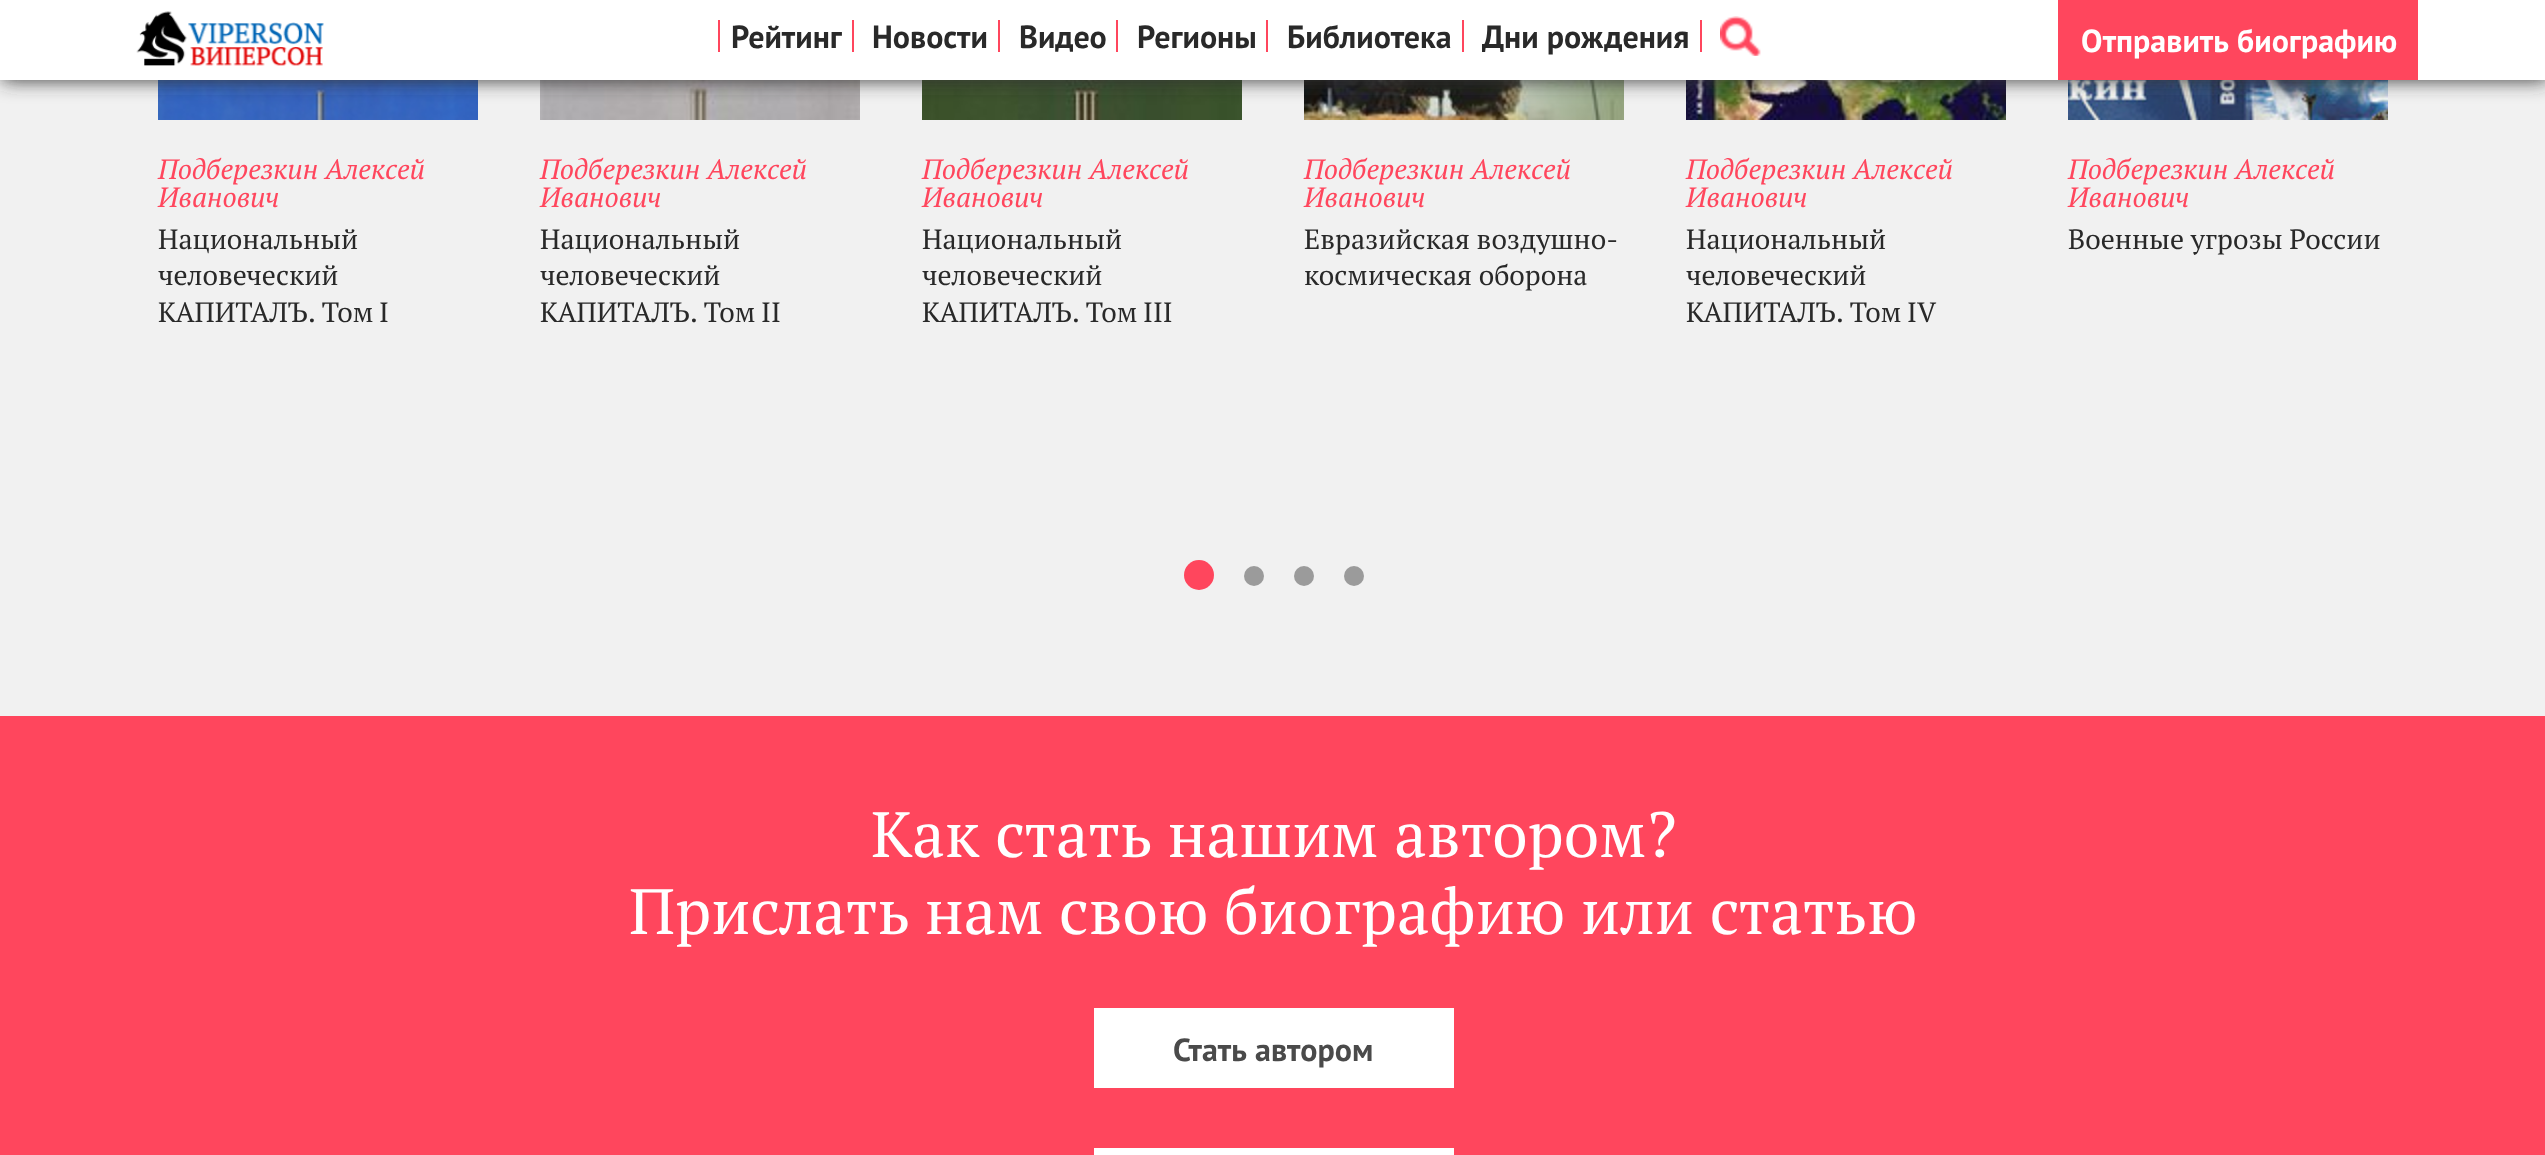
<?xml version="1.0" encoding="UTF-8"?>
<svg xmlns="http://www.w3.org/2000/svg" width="2545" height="1155">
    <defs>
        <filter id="blur1" x="-50%" y="-200%" width="200%" height="500%"><feGaussianBlur stdDeviation="10"/></filter>
    </defs>
    <rect width="100%" height="100%" fill="#F1F1F1"/>
    <image x="158" y="80" width="320" height="40" href="img_03.png"/>
    <image x="540" y="80" width="320" height="40" href="img_04.png"/>
    <image x="922" y="80" width="320" height="40" href="img_05.png"/>
    <image x="1304" y="80" width="320" height="40" href="img_06.png"/>
    <image x="1686" y="80" width="320" height="40" href="img_07.png"/>
    <image x="2068" y="80" width="320" height="40" href="img_08.png"/>
    <rect x="2" y="-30" width="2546" height="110" fill="#333333" filter="url(#blur1)"/>
    <rect x="0" y="0" width="2545" height="80" fill="#FFFFFF"/>
    <image x="136" y="11" width="188" height="55" href="img_01.png"/>
    <rect x="852" y="20" width="2" height="32" fill="#FF465D"/>
    <rect x="718" y="20" width="2" height="32" fill="#FF465D"/>
    <text x="731" y="48" font-family="PT Sans" font-size="32" font-weight="700" fill="#292929">Рейтинг</text>
    <rect x="998" y="20" width="2" height="32" fill="#FF465D"/>
    <text x="872" y="48" font-family="PT Sans" font-size="32" font-weight="700" fill="#292929">Новости</text>
    <rect x="1116" y="20" width="2" height="32" fill="#FF465D"/>
    <text x="1019" y="48" font-family="PT Sans" font-size="32" font-weight="700" fill="#292929">Видео</text>
    <rect x="1266" y="20" width="2" height="32" fill="#FF465D"/>
    <text x="1137" y="48" font-family="PT Sans" font-size="32" font-weight="700" fill="#292929">Регионы</text>
    <rect x="1462" y="20" width="2" height="32" fill="#FF465D"/>
    <text x="1287" y="48" font-family="PT Sans" font-size="32" font-weight="700" fill="#292929">Библиотека</text>
    <rect x="1700" y="20" width="2" height="32" fill="#FF465D"/>
    <text x="1482" y="48" font-family="PT Sans" font-size="32" font-weight="700" fill="#292929">Дни рождения</text>
    <image x="1720" y="16" width="41" height="40" href="img_02.png"/>
    <rect x="2058" y="0" width="360" height="80" fill="#FF465D"/>
    <text x="2081" y="52" word-spacing="1" font-family="PT Sans" font-size="32" font-weight="700" fill="#FFFFFF">Отправить биографию</text>
    <text font-family="PT Serif" font-size="28" font-style="italic" fill="#FF465D">
        <tspan x="158" y="179">Подберезкин Алексей</tspan>
        <tspan x="158" y="207">Иванович</tspan>
    </text>
    <text font-family="PT Serif" font-size="28" fill="#292929">
        <tspan x="158" y="249">Национальный</tspan>
        <tspan x="158" y="285">человеческий</tspan>
        <tspan x="158" y="322" word-spacing="-1">КАПИТАЛЪ. Том I</tspan>
    </text>
    <text font-family="PT Serif" font-size="28" font-style="italic" fill="#FF465D">
        <tspan x="540" y="179">Подберезкин Алексей</tspan>
        <tspan x="540" y="207">Иванович</tspan>
    </text>
    <text font-family="PT Serif" font-size="28" fill="#292929">
        <tspan x="540" y="249">Национальный</tspan>
        <tspan x="540" y="285">человеческий</tspan>
        <tspan x="540" y="322" word-spacing="-1">КАПИТАЛЪ. Том II</tspan>
    </text>
    <text font-family="PT Serif" font-size="28" font-style="italic" fill="#FF465D">
        <tspan x="922" y="179">Подберезкин Алексей</tspan>
        <tspan x="922" y="207">Иванович</tspan>
    </text>
    <text font-family="PT Serif" font-size="28" fill="#292929">
        <tspan x="922" y="249">Национальный</tspan>
        <tspan x="922" y="285">человеческий</tspan>
        <tspan x="922" y="322" word-spacing="-1">КАПИТАЛЪ. Том III</tspan>
    </text>
    <text font-family="PT Serif" font-size="28" font-style="italic" fill="#FF465D">
        <tspan x="1304" y="179">Подберезкин Алексей</tspan>
        <tspan x="1304" y="207">Иванович</tspan>
    </text>
    <text font-family="PT Serif" font-size="28" fill="#292929">
        <tspan x="1304" y="249">Евразийская воздушно-</tspan>
        <tspan x="1304" y="285">космическая оборона</tspan>
    </text>
    <text font-family="PT Serif" font-size="28" font-style="italic" fill="#FF465D">
        <tspan x="1686" y="179">Подберезкин Алексей</tspan>
        <tspan x="1686" y="207">Иванович</tspan>
    </text>
    <text font-family="PT Serif" font-size="28" fill="#292929">
        <tspan x="1686" y="249">Национальный</tspan>
        <tspan x="1686" y="285">человеческий</tspan>
        <tspan x="1686" y="322" word-spacing="-1">КАПИТАЛЪ. Том IV</tspan>
    </text>
    <text font-family="PT Serif" font-size="28" font-style="italic" fill="#FF465D">
        <tspan x="2068" y="179">Подберезкин Алексей</tspan>
        <tspan x="2068" y="207">Иванович</tspan>
    </text>
    <text x="2068" y="249" font-family="PT Serif" font-size="28" fill="#292929">Военные угрозы России</text>
    <circle cx="1199" cy="575" r="15" fill="#FF465D"/>
    <circle cx="1254" cy="576" r="10" fill="#9B9B9B"/>
    <circle cx="1304" cy="576" r="10" fill="#9B9B9B"/>
    <circle cx="1354" cy="576" r="10" fill="#9B9B9B"/>
    <rect x="0" y="716" width="2545" height="439" fill="#FF465D"/>
    <text x="871" y="857" word-spacing="0.5" font-family="PT Serif" font-size="64" fill="#FFFFFF">Как стать нашим автором?</text>
    <text x="629" y="934" word-spacing="0.25" font-family="PT Serif" font-size="64" fill="#FFFFFF">Прислать нам свою биографию или статью</text>
    <rect x="1094" y="1008" width="360" height="80" fill="#FFFFFF"/>
    <text x="1173" y="1061" word-spacing="1" font-family="PT Sans" font-size="32" font-weight="700" fill="#4A4A4A">Стать автором</text>
    <rect x="1094" y="1148" width="360" height="7" fill="#FFFFFF"/>
</svg>
